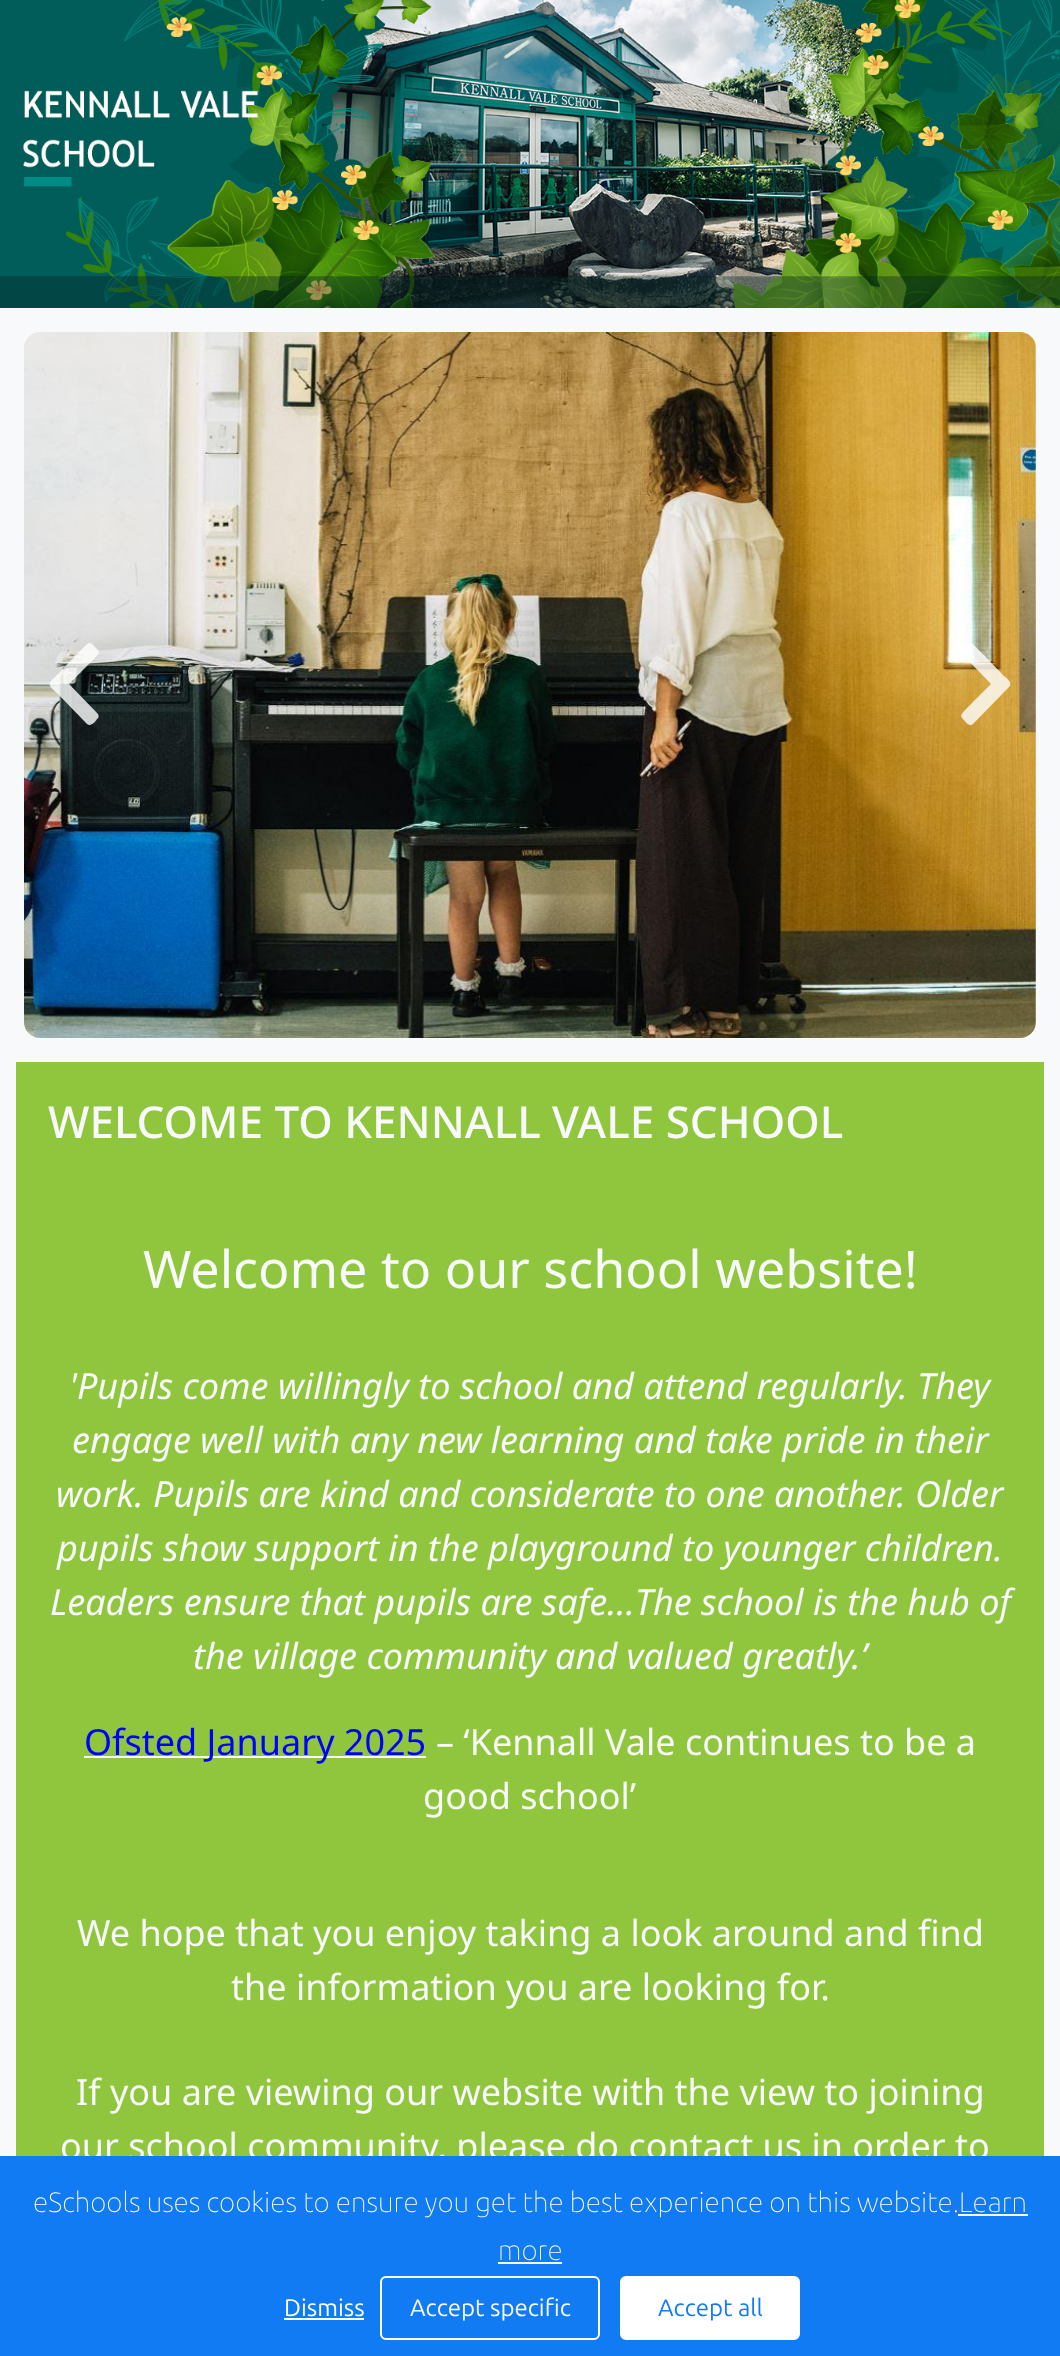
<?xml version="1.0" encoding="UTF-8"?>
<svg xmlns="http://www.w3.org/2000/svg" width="1060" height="2356">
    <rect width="100%" height="100%" fill="#F8F9FA"/>
    <image x="0" y="0" width="1060" height="308" href="img_01.png"/>
    <image x="24" y="332" width="1012" height="706" href="img_02.png"/>
    <path d="M 51 681 L 87 644 C 90 641 94 645 96 648 C 102 653 97 655 93 660 L 69 684 L 98 714 C 99 716 99 718 97 719 C 95 722 91 727 87 724 L 57 693 C 55 691 46 685 51 681 Z" fill="#FFFFFF" fill-opacity="0.8"/>
    <path d="M 1009 687 L 973 724 C 970 727 966 723 964 720 C 958 715 963 713 967 708 L 991 684 L 962 654 C 961 652 961 650 963 649 C 965 646 969 641 973 644 L 1003 675 C 1005 677 1014 683 1009 687 Z" fill="#FFFFFF" fill-opacity="0.8"/>
    <rect x="16" y="1062" width="1028" height="1094" fill="#90C63E"/>
    <text x="48" y="1138" font-family="Noto Sans" font-size="44" font-weight="500" fill="#F8F9FA">WELCOME TO KENNALL VALE SCHOOL</text>
    <text x="143" y="1288" font-family="Noto Sans" font-size="52" fill="#F8F9FA">Welcome to our school website!</text>
    <text x="69" y="1399" font-family="Noto Sans" font-size="36" font-style="italic" fill="#F8F9FA">'Pupils come willingly to school and attend regularly. They</text>
    <text x="72" y="1453" font-family="Noto Sans" font-size="36" font-style="italic" fill="#F8F9FA">engage well with any new learning and take pride in their</text>
    <text x="56" y="1507" font-family="Noto Sans" font-size="36" font-style="italic" fill="#F8F9FA">work. Pupils are kind and considerate to one another. Older</text>
    <text x="57" y="1561" font-family="Noto Sans" font-size="36" font-style="italic" fill="#F8F9FA">pupils show support in the playground to younger children.</text>
    <text x="50" y="1615" font-family="Noto Sans" font-size="36" font-style="italic" fill="#F8F9FA">Leaders ensure that pupils are safe…The school is the hub of</text>
    <text x="193" y="1669" font-family="Noto Sans" font-size="36" font-style="italic" fill="#F8F9FA">the village community and valued greatly.’</text>
    <rect x="84" y="1756" width="342" height="2" fill="#F8F9FA"/>
    <text x="84" y="1755" font-family="Noto Sans" font-size="36" fill="#0000FF">Ofsted January 2025</text>
    <text x="436" y="1755" font-family="Noto Sans" font-size="36" fill="#F8F9FA">– ‘Kennall Vale continues to be a</text>
    <text x="423" y="1809" font-family="Noto Sans" font-size="36" fill="#F8F9FA">good school’</text>
    <text x="77" y="1946" font-family="Noto Sans" font-size="36" fill="#F8F9FA">We hope that you enjoy taking a look around and find</text>
    <text x="231" y="2000" font-family="Noto Sans" font-size="36" fill="#F8F9FA">the information you are looking for.</text>
    <text x="76" y="2105" font-family="Noto Sans" font-size="36" fill="#F8F9FA">If you are viewing our website with the view to joining</text>
    <text x="60" y="2159" font-family="Noto Sans" font-size="36" fill="#F8F9FA">our school community, please do contact us in order to</text>
    <rect x="0" y="2156" width="1060" height="200" fill="#117BF3"/>
    <text x="33" y="2212" font-family="Ubuntu" font-size="28" font-weight="100" fill="#FFFFFF">eSchools uses cookies to ensure you get the best experience on this website.</text>
    <rect x="958" y="2214" width="70" height="2" fill="#F7F7F7"/>
    <text x="959" y="2212" font-family="Ubuntu" font-size="28" font-weight="100" fill="#F8F9FA">Learn</text>
    <text x="498" y="2260" font-family="Ubuntu" font-size="28" font-weight="100" fill="#F8F9FA">more</text>
    <rect x="498" y="2262" width="64" height="2" fill="#F7F7F7"/>
    <text x="284" y="2316" font-family="Ubuntu" font-size="24" fill="#FFFFFF">Dismiss</text>
    <rect x="284" y="2318" width="80" height="2" fill="#FFFFFF"/>
    <rect x="381" y="2277" width="218" height="62" rx="5" fill="none" stroke="#FFFFFF" stroke-width="2"/>
    <text x="410" y="2316" font-family="Ubuntu" font-size="24" fill="#F8F9FA">Accept specific</text>
    <rect x="621" y="2277" width="178" height="62" rx="5" fill="#FFFFFF" stroke="#FFFFFF" stroke-width="2"/>
    <text x="658" y="2316" font-family="Ubuntu" font-size="24" fill="#117BF3">Accept all</text>
</svg>
